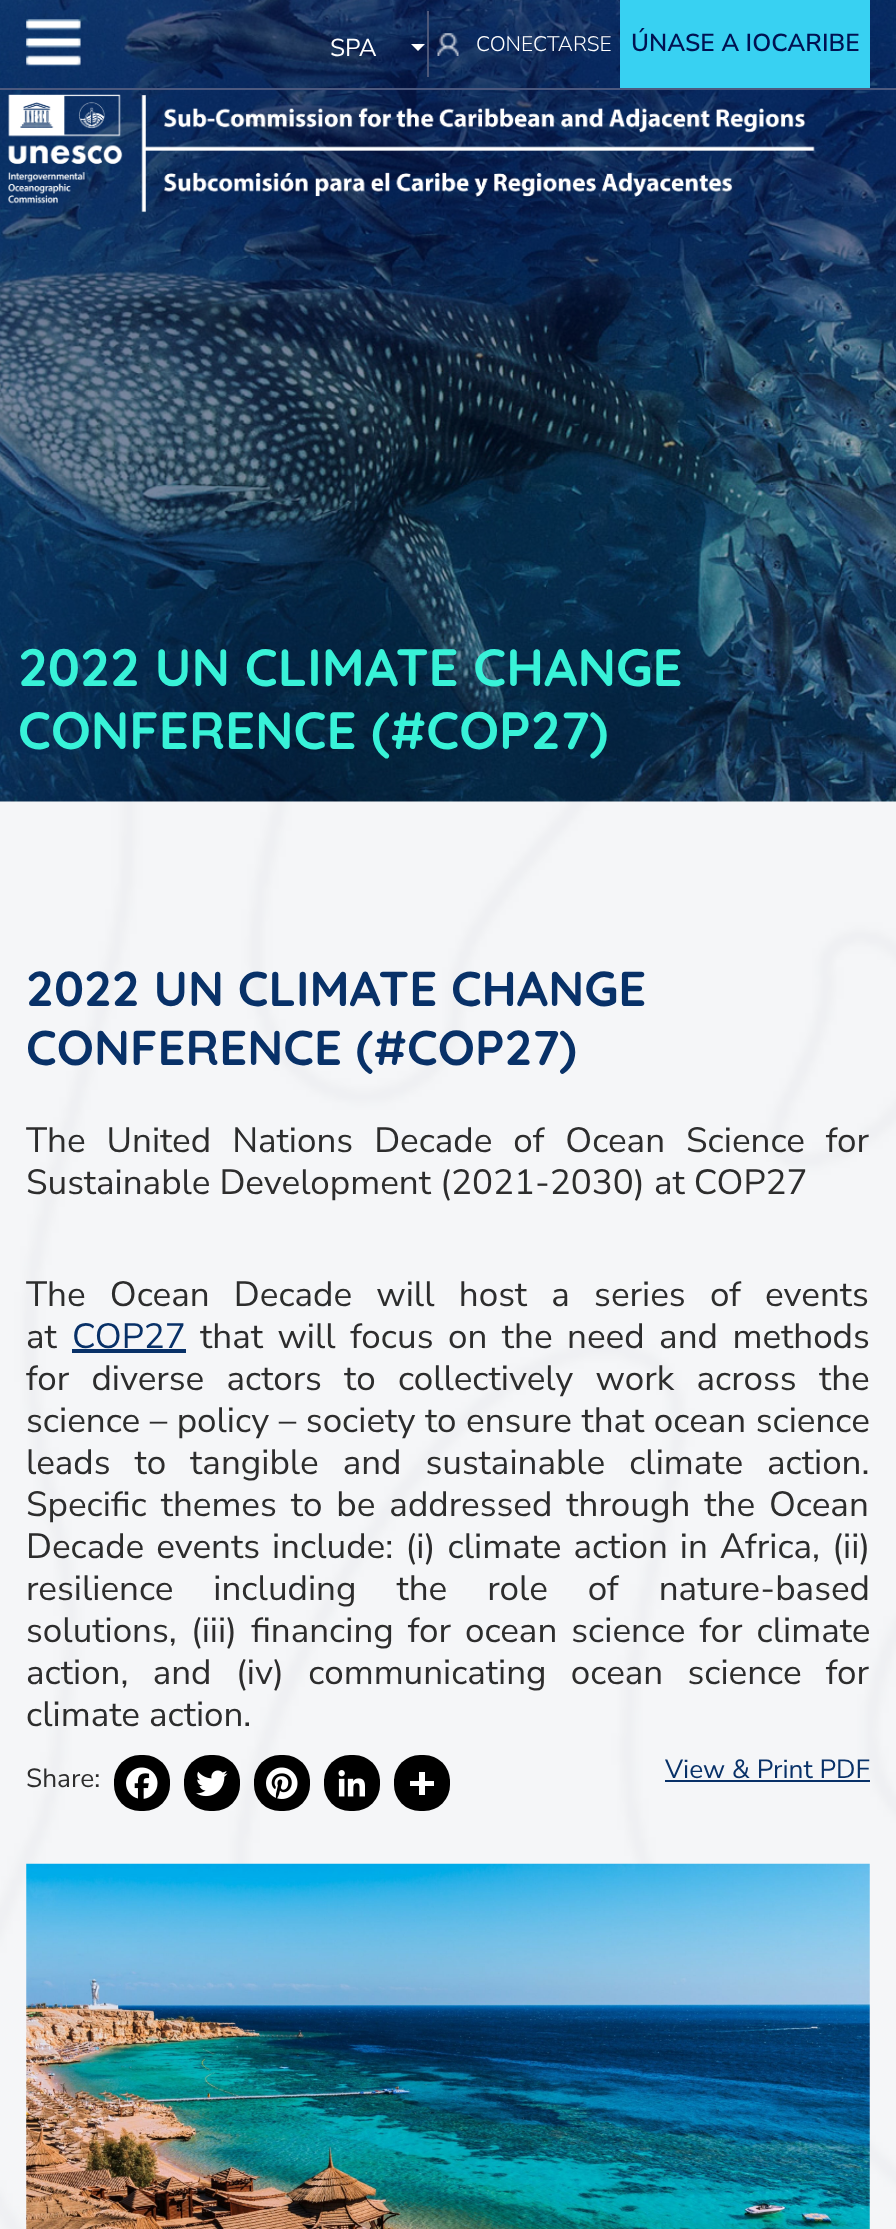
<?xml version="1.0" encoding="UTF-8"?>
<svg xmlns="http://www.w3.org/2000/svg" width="896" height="2229">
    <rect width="100%" height="100%" fill="#FFFFFF"/>
    <image x="0" y="801" width="896" height="1428" href="img_05.png"/>
    <image x="0" y="0" width="896" height="802" href="img_03.png"/>
    <rect x="0" y="88" width="896" height="2" fill="#4D597E"/>
    <image x="26" y="19" width="55" height="48" href="img_01.png"/>
    <text x="330" y="56" font-family="Nunito Sans" font-size="24.5" fill="#FFFFFF">SPA</text>
    <path d="M 411 44 H 425 L 418 51 Z" fill="#FFFFFF"/>
    <rect x="427" y="11" width="2" height="66" fill="#4D5778"/>
    <image x="437" y="33" width="22" height="23" href="img_02.png"/>
    <text x="476" y="51" font-family="Nunito Sans" font-size="21" font-weight="300" fill="#FFFFFF">CONECTARSE</text>
    <rect x="620" y="0" width="250" height="88" fill="#38D1F2"/>
    <text x="631" y="51" font-family="Nunito Sans" font-size="24.5" font-weight="600" fill="#001252">ÚNASE A IOCARIBE</text>
    <image x="8" y="94" width="807" height="119" href="img_04.png"/>
    <text font-family="Quicksand" font-size="52.5" font-weight="700" fill="#38F2D8">
        <tspan x="18" y="686">2022 UN CLIMATE CHANGE</tspan>
        <tspan x="18" y="749">CONFERENCE (#COP27)</tspan>
    </text>
    <text font-family="Quicksand" font-size="49" font-weight="700" fill="#083168">
        <tspan x="26" y="1006">2022 UN CLIMATE CHANGE</tspan>
        <tspan x="26" y="1065">CONFERENCE (#COP27)</tspan>
    </text>
    <text font-family="Nunito Sans" font-size="35" fill="#2D2D2D">
        <tspan x="26" y="1152" word-spacing="12">The United Nations Decade of Ocean Science for</tspan>
        <tspan x="26" y="1194">Sustainable Development (2021-2030) at COP27</tspan>
    </text>
    <text font-family="Nunito Sans" font-size="35" fill="#2D2D2D">
        <tspan x="26" y="1306" word-spacing="15.25">The Ocean Decade will host a series of events</tspan>
        <tspan x="26" y="1348">at</tspan>
    </text>
    <text x="72" y="1348" font-family="Nunito Sans" font-size="35" fill="#083168">COP27</text>
    <rect x="72" y="1349" width="114" height="4" fill="#083168"/>
    <text x="200" y="1348" word-spacing="5.5" font-family="Nunito Sans" font-size="35" fill="#2D2D2D">that will focus on the need and methods</text>
    <text font-family="Nunito Sans" font-size="35" fill="#2D2D2D">
        <tspan x="26" y="1390" word-spacing="13.25">for diverse actors to collectively work across the</tspan>
        <tspan x="26" y="1432" word-spacing="0.5">science – policy – society to ensure that ocean science</tspan>
        <tspan x="26" y="1474" word-spacing="15">leads to tangible and sustainable climate action.</tspan>
        <tspan x="26" y="1516" word-spacing="5">Specific themes to be addressed through the Ocean</tspan>
        <tspan x="26" y="1558" word-spacing="3">Decade events include: (i) climate action in Africa, (ii)</tspan>
        <tspan x="26" y="1600" word-spacing="31">resilience including the role of nature-based</tspan>
        <tspan x="26" y="1642" word-spacing="5">solutions, (iii) financing for ocean science for climate</tspan>
        <tspan x="26" y="1684" word-spacing="15.25">action, and (iv) communicating ocean science for</tspan>
        <tspan x="26" y="1726">climate action.</tspan>
    </text>
    <text x="26" y="1787" font-family="Nunito Sans" font-size="26.25" fill="#2D2D2D">Share:</text>
    <rect x="114" y="1755" width="56" height="56" rx="26" fill="#000000"/>
    <image x="126" y="1767" width="32" height="32" href="img_06.png"/>
    <rect x="184" y="1755" width="56" height="56" rx="26" fill="#000000"/>
    <image x="196" y="1770" width="32" height="27" href="img_07.png"/>
    <rect x="254" y="1755" width="56" height="56" rx="26" fill="#000000"/>
    <image x="266" y="1767" width="32" height="32" href="img_08.png"/>
    <rect x="324" y="1755" width="56" height="56" rx="26" fill="#000000"/>
    <image x="338" y="1770" width="27" height="27" href="img_09.png"/>
    <rect x="394" y="1755" width="56" height="56" rx="26" fill="#000000"/>
    <rect x="419" y="1772" width="6" height="23" fill="#FFFFFF"/>
    <rect x="410" y="1781" width="24" height="5" fill="#FFFFFF"/>
    <text x="665" y="1778" font-family="Nunito Sans" font-size="26.25" fill="#083168">View &amp; Print PDF</text>
    <rect x="665" y="1780" width="205" height="2" fill="#083168"/>
    <image x="26" y="1863" width="844" height="366" href="img_10.png"/>
</svg>
